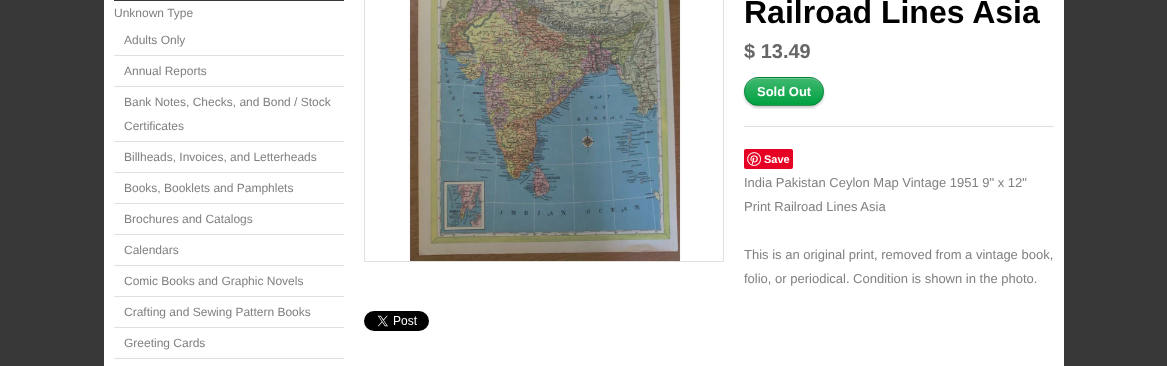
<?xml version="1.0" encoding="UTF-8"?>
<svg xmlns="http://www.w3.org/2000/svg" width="1167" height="366">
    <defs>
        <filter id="blur1" x="-50%" y="-200%" width="200%" height="500%"><feGaussianBlur stdDeviation="1"/></filter>
        <clipPath id="clip1"><rect x="744" y="77" width="80" height="29" rx="14.5"/></clipPath>
        <linearGradient id="g1" gradientUnits="userSpaceOnUse" x1="745" y1="105" x2="745" y2="78"><stop offset="0" stop-color="#FFFFFF" stop-opacity="0"/><stop offset="1" stop-color="#FFFFFF" stop-opacity="0.25"/></linearGradient>
        <linearGradient id="g2" gradientUnits="userSpaceOnUse" x1="745" y1="132" x2="745" y2="105"><stop offset="0" stop-color="#FFFFFF" stop-opacity="0"/><stop offset="1" stop-color="#FFFFFF" stop-opacity="0.25"/></linearGradient>
    </defs>
    <rect width="100%" height="100%" fill="#383838"/>
    <rect x="104" y="0" width="960" height="366" fill="#FFFFFF"/>
    <rect x="114" y="0" width="230" height="1" fill="#383838"/>
    <text x="114" y="17" font-family="Liberation Sans" font-size="12" fill="#808080">Unknown Type</text>
    <rect x="114" y="55" width="230" height="1" fill="#E0E0E0"/>
    <text x="124" y="44" font-family="Liberation Sans" font-size="12" fill="#808080">Adults Only</text>
    <rect x="114" y="86" width="230" height="1" fill="#E0E0E0"/>
    <text x="124" y="75" font-family="Liberation Sans" font-size="12" fill="#808080">Annual Reports</text>
    <rect x="114" y="141" width="230" height="1" fill="#E0E0E0"/>
    <text x="124" y="106" font-family="Liberation Sans" font-size="12" fill="#808080">Bank Notes, Checks, and Bond / Stock</text>
    <text x="124" y="130" font-family="Liberation Sans" font-size="12" fill="#808080">Certificates</text>
    <rect x="114" y="172" width="230" height="1" fill="#E0E0E0"/>
    <text x="124" y="161" font-family="Liberation Sans" font-size="12" fill="#808080">Billheads, Invoices, and Letterheads</text>
    <rect x="114" y="203" width="230" height="1" fill="#E0E0E0"/>
    <text x="124" y="192" font-family="Liberation Sans" font-size="12" fill="#808080">Books, Booklets and Pamphlets</text>
    <rect x="114" y="234" width="230" height="1" fill="#E0E0E0"/>
    <text x="124" y="223" font-family="Liberation Sans" font-size="12" fill="#808080">Brochures and Catalogs</text>
    <rect x="114" y="265" width="230" height="1" fill="#E0E0E0"/>
    <text x="124" y="254" font-family="Liberation Sans" font-size="12" fill="#808080">Calendars</text>
    <rect x="114" y="296" width="230" height="1" fill="#E0E0E0"/>
    <text x="124" y="285" font-family="Liberation Sans" font-size="12" fill="#808080">Comic Books and Graphic Novels</text>
    <rect x="114" y="327" width="230" height="1" fill="#E0E0E0"/>
    <text x="124" y="316" font-family="Liberation Sans" font-size="12" fill="#808080">Crafting and Sewing Pattern Books</text>
    <rect x="114" y="358" width="230" height="1" fill="#E0E0E0"/>
    <text x="124" y="347" font-family="Liberation Sans" font-size="12" fill="#808080">Greeting Cards</text>
    <rect x="364.5" y="-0.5" width="359" height="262" fill="none" stroke="#E0E0E0"/>
    <image x="408" y="0" width="274" height="261" href="img_01.png"/>
    <text x="744" y="23" font-family="Liberation Sans" font-size="32" font-weight="700" fill="#000000">Railroad Lines Asia</text>
    <text x="744" y="58" font-family="Liberation Sans" font-size="20" font-weight="700" fill="#666666">$ 13.49</text>
    <rect x="744" y="126" width="310" height="1" fill="#E0E0E0"/>
    <rect x="744" y="79" width="80" height="29" rx="14.5" fill="#000000" fill-opacity="0.2" filter="url(#blur1)"/>
    <rect x="744" y="77" width="80" height="29" rx="14.5" fill="#00A140"/>
    <g clip-path="url(#clip1)">
        <rect x="744" y="78" width="80" height="25" fill="url(#g1)"/>
        <rect x="754" y="105" width="60" height="1" fill="url(#g2)"/>
    </g>
    <path d="M 758 79 H 810 C 817 79 823 85 823 92 C 823 85 819 80 812 78 H 756 C 749 80 745 85 745 92 C 745 85 751 79 758 79 Z" fill="#FFFFFF" fill-opacity="0.25"/>
    <rect x="744.5" y="77.5" width="79" height="28" rx="14" fill="none" stroke="#000000" stroke-opacity="0.2"/>
    <text x="757" y="96" font-family="Liberation Sans" font-size="13" font-weight="700" fill="#FFFFFF">Sold Out</text>
    <rect x="744" y="149" width="49" height="20" rx="2" fill="#E60023"/>
    <image x="747" y="152" width="14" height="14" href="img_02.png"/>
    <text x="764" y="163" font-family="Liberation Sans" font-size="11" font-weight="700" fill="#FFFFFF">Save</text>
    <text font-family="Liberation Sans" font-size="13" fill="#808080">
        <tspan x="744" y="187">India Pakistan Ceylon Map Vintage 1951 9" x 12"</tspan>
        <tspan x="744" y="211">Print Railroad Lines Asia</tspan>
    </text>
    <text font-family="Liberation Sans" font-size="13" fill="#808080">
        <tspan x="744" y="259">This is an original print, removed from a vintage book,</tspan>
        <tspan x="744" y="283">folio, or periodical. Condition is shown in the photo.</tspan>
    </text>
    <image x="364" y="311" width="65" height="20" href="img_03.png"/>
</svg>
